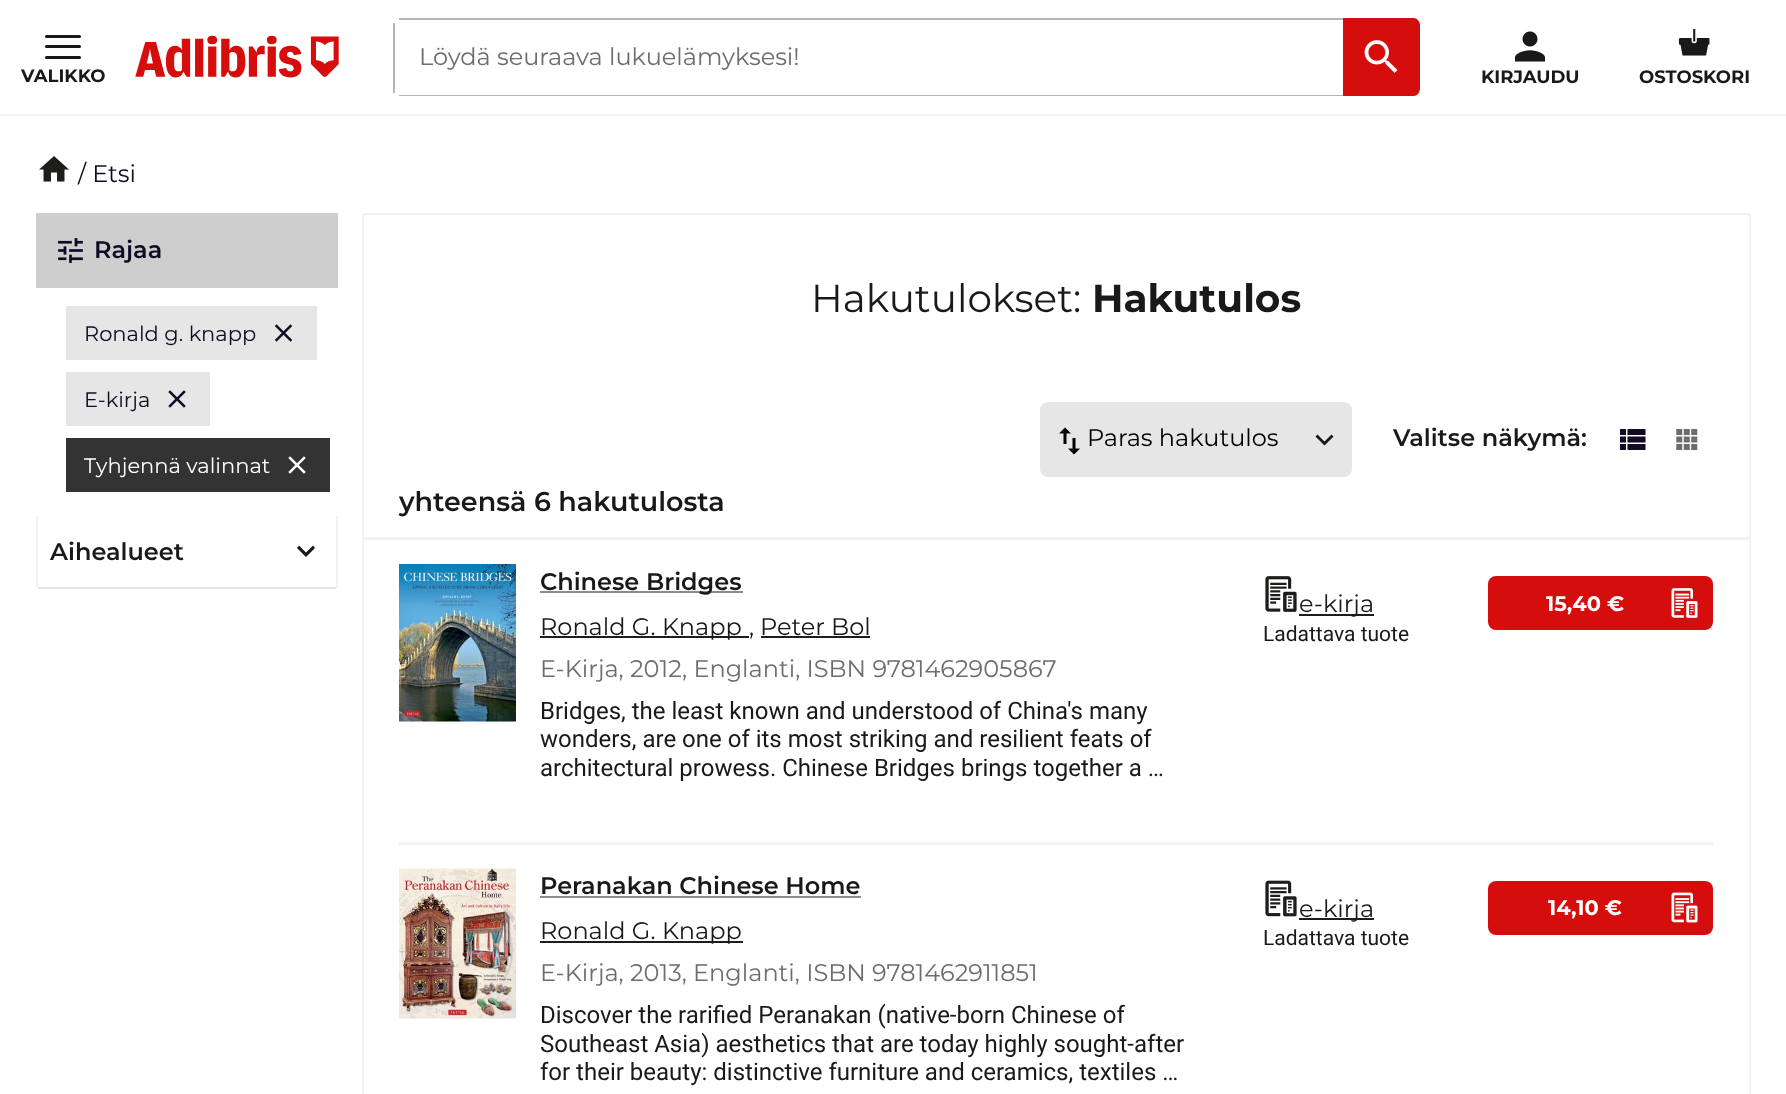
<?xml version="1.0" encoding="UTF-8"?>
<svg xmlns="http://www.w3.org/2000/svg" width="1786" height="1094">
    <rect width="100%" height="100%" fill="#FFFFFF"/>
    <rect x="0" y="114" width="1786" height="2" fill="#F2F2F2"/>
    <image x="135" y="35" width="204" height="43" href="img_01.png"/>
    <rect x="393" y="23" width="2" height="70" fill="#B5B5B5"/>
    <path d="M 400 18 H 399 V 20 H 1418 C 1417 19 1415 18 1413 18 Z" fill="#B5B5B5"/>
    <path d="M 399 95 H 1417 L 1413 96 H 399 Z" fill="#B5B5B5"/>
    <text x="419" y="65" font-family="Montserrat" font-size="24" fill="#6D6D6D">Löydä seuraava lukuelämyksesi!</text>
    <path d="M 1343 18 V 96 H 1413 C 1417 96 1420 93 1420 88 V 26 C 1420 21 1417 18 1413 18 Z" fill="#D60D0D"/>
    <image x="1364" y="40" width="34" height="33" href="img_02.png"/>
    <rect x="45" y="35" width="36" height="3" rx="1.5" fill="#191919"/>
    <rect x="45" y="45" width="36" height="3" rx="1.5" fill="#191919"/>
    <rect x="45" y="56" width="36" height="3" rx="1.5" fill="#191919"/>
    <text x="21" y="82" font-family="Montserrat" font-size="18" font-weight="700" fill="#191919">VALIKKO</text>
    <image x="1514" y="31" width="32" height="31" href="img_03.png"/>
    <text x="1481" y="83" font-family="Montserrat" font-size="18" font-weight="700" fill="#191919">KIRJAUDU</text>
    <image x="1678" y="29" width="32" height="27" href="img_04.png"/>
    <text x="1639" y="83" font-family="Montserrat" font-size="18" font-weight="700" fill="#191919">OSTOSKORI</text>
    <image x="39" y="156" width="30" height="26" href="img_05.png"/>
    <text x="78" y="182" font-family="Montserrat" font-size="24" fill="#100A24">/ Etsi</text>
    <rect x="36" y="213" width="302" height="75" fill="#CECECE"/>
    <image x="58" y="238" width="25" height="25" href="img_06.png"/>
    <text x="94" y="258" font-family="Montserrat" font-size="24" font-weight="600" fill="#100A24">Rajaa</text>
    <rect x="66" y="306" width="251" height="54" fill="#E6E6E6"/>
    <text x="84" y="341" font-family="Montserrat" font-size="21" fill="#100A24">Ronald g. knapp</text>
    <image x="274" y="324" width="19" height="18" href="img_07.png"/>
    <rect x="66" y="372" width="144" height="54" fill="#E6E6E6"/>
    <text x="84" y="407" font-family="Montserrat" font-size="21" fill="#100A24">E-kirja</text>
    <image x="168" y="390" width="18" height="18" href="img_08.png"/>
    <rect x="66" y="438" width="264" height="54" fill="#333333"/>
    <text x="84" y="473" font-family="Montserrat" font-size="21" fill="#FFFFFF">Tyhjennä valinnat</text>
    <image x="288" y="456" width="18" height="18" href="img_09.png"/>
    <rect x="336" y="516" width="2" height="72" fill="#F2F2F2"/>
    <rect x="36" y="516" width="2" height="72" fill="#F2F2F2"/>
    <rect x="38" y="587" width="298" height="2" fill="#E6E6E6"/>
    <text x="50" y="560" font-family="Montserrat" font-size="24" font-weight="600" fill="#191919">Aihealueet</text>
    <path d="M 299 545.5 L 306 552.5 L 313 545.5 L 315 548 L 306 557 L 297 548 Z" fill="#191919"/>
    <rect x="363" y="214" width="1387" height="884" rx="2" fill="none" stroke="#F2F2F2" stroke-width="2"/>
    <text x="811" y="312" font-family="Montserrat" font-size="39" fill="#191919">Hakutulokset:</text>
    <text x="1092" y="312" font-family="Montserrat" font-size="39" font-weight="700" fill="#191919">Hakutulos</text>
    <rect x="1040" y="402" width="312" height="75" rx="8" fill="#E6E6E6"/>
    <path d="M 1331.5 434.5 L 1324.5 441.5 L 1317.5 434.5 L 1315.5 436.5 L 1324.5 445.5 L 1333.5 436.5 Z" fill="#191919"/>
    <image x="1059" y="427" width="21" height="28" href="img_10.png"/>
    <text x="1087" y="446" font-family="Montserrat" font-size="24" fill="#000000">Paras hakutulos</text>
    <text x="1393" y="446" font-family="Montserrat" font-size="24" font-weight="600" fill="#191919">Valitse näkymä:</text>
    <image x="1619" y="429" width="27" height="21" href="img_11.png"/>
    <image x="1676" y="429" width="22" height="21" href="img_12.png"/>
    <rect x="363" y="537" width="1386" height="3" fill="#F2F2F2"/>
    <text x="399" y="511" font-family="Montserrat" font-size="27" font-weight="600" fill="#191919">yhteensä 6 hakutulosta</text>
    <image x="399" y="564" width="117" height="158" href="img_13.png"/>
    <rect x="540" y="591" width="203" height="2" fill="#8C8C8C"/>
    <text x="540" y="590" font-family="Montserrat" font-size="24" font-weight="600" fill="#191919">Chinese Bridges</text>
    <rect x="540" y="636" width="209" height="2" fill="#1D1D1B"/>
    <text x="540" y="635" font-family="Montserrat" font-size="24" fill="#191919">Ronald G. Knapp</text>
    <text x="749" y="635" font-family="Montserrat" font-size="24" fill="#100A24">,</text>
    <text x="760" y="635" font-family="Montserrat" font-size="24" fill="#191919">Peter Bol</text>
    <rect x="761" y="636" width="109" height="2" fill="#1D1D1B"/>
    <text x="540" y="677" font-family="Montserrat" font-size="24" fill="#6D6D6D">E-Kirja, 2012, Englanti, ISBN 9781462905867</text>
    <text font-family="Roboto" font-size="24" fill="#191919">
        <tspan x="540" y="719">Bridges, the least known and understood of China's many</tspan>
        <tspan x="540" y="747">wonders, are one of its most striking and resilient feats of</tspan>
        <tspan x="540" y="776">architectural prowess. Chinese Bridges brings together a …</tspan>
    </text>
    <image x="1265" y="576" width="32" height="36" href="img_14.png"/>
    <rect x="1299" y="614" width="75" height="2" fill="#1D1D1B"/>
    <text x="1299" y="612" font-family="Montserrat" font-size="24" fill="#191919">e-kirja</text>
    <text x="1263" y="641" font-family="Roboto" font-size="21" fill="#191919">Ladattava tuote</text>
    <rect x="1488" y="576" width="225" height="54" rx="8" fill="#D60D0D"/>
    <text x="1546" y="611" font-family="Montserrat" font-size="21" font-weight="700" fill="#FFFFFF">15,40 €</text>
    <image x="1671" y="588" width="27" height="30" href="img_15.png"/>
    <rect x="399" y="842" width="1314" height="3" fill="#F2F2F2"/>
    <image x="399" y="868" width="117" height="151" href="img_16.png"/>
    <text x="540" y="894" font-family="Montserrat" font-size="24" font-weight="600" fill="#191919">Peranakan Chinese Home</text>
    <rect x="540" y="896" width="321" height="2" fill="#8C8C8C"/>
    <rect x="540" y="941" width="203" height="2" fill="#1D1D1B"/>
    <text x="540" y="939" font-family="Montserrat" font-size="24" fill="#191919">Ronald G. Knapp</text>
    <text x="540" y="981" font-family="Montserrat" font-size="24" fill="#6D6D6D">E-Kirja, 2013, Englanti, ISBN 9781462911851</text>
    <text font-family="Roboto" font-size="24" fill="#191919">
        <tspan x="540" y="1023">Discover the rarified Peranakan (native-born Chinese of</tspan>
        <tspan x="540" y="1052">Southeast Asia) aesthetics that are today highly sought-after</tspan>
        <tspan x="540" y="1080">for their beauty: distinctive furniture and ceramics, textiles …</tspan>
    </text>
    <image x="1265" y="880" width="32" height="37" href="img_17.png"/>
    <rect x="1299" y="918" width="75" height="2" fill="#1D1D1B"/>
    <text x="1299" y="917" font-family="Montserrat" font-size="24" fill="#191919">e-kirja</text>
    <text x="1263" y="945" font-family="Roboto" font-size="21" fill="#191919">Ladattava tuote</text>
    <rect x="1488" y="881" width="225" height="54" rx="8" fill="#D60D0D"/>
    <text x="1548" y="915" font-family="Montserrat" font-size="21" font-weight="700" fill="#FFFFFF">14,10 €</text>
    <image x="1671" y="892" width="27" height="31" href="img_18.png"/>
</svg>
